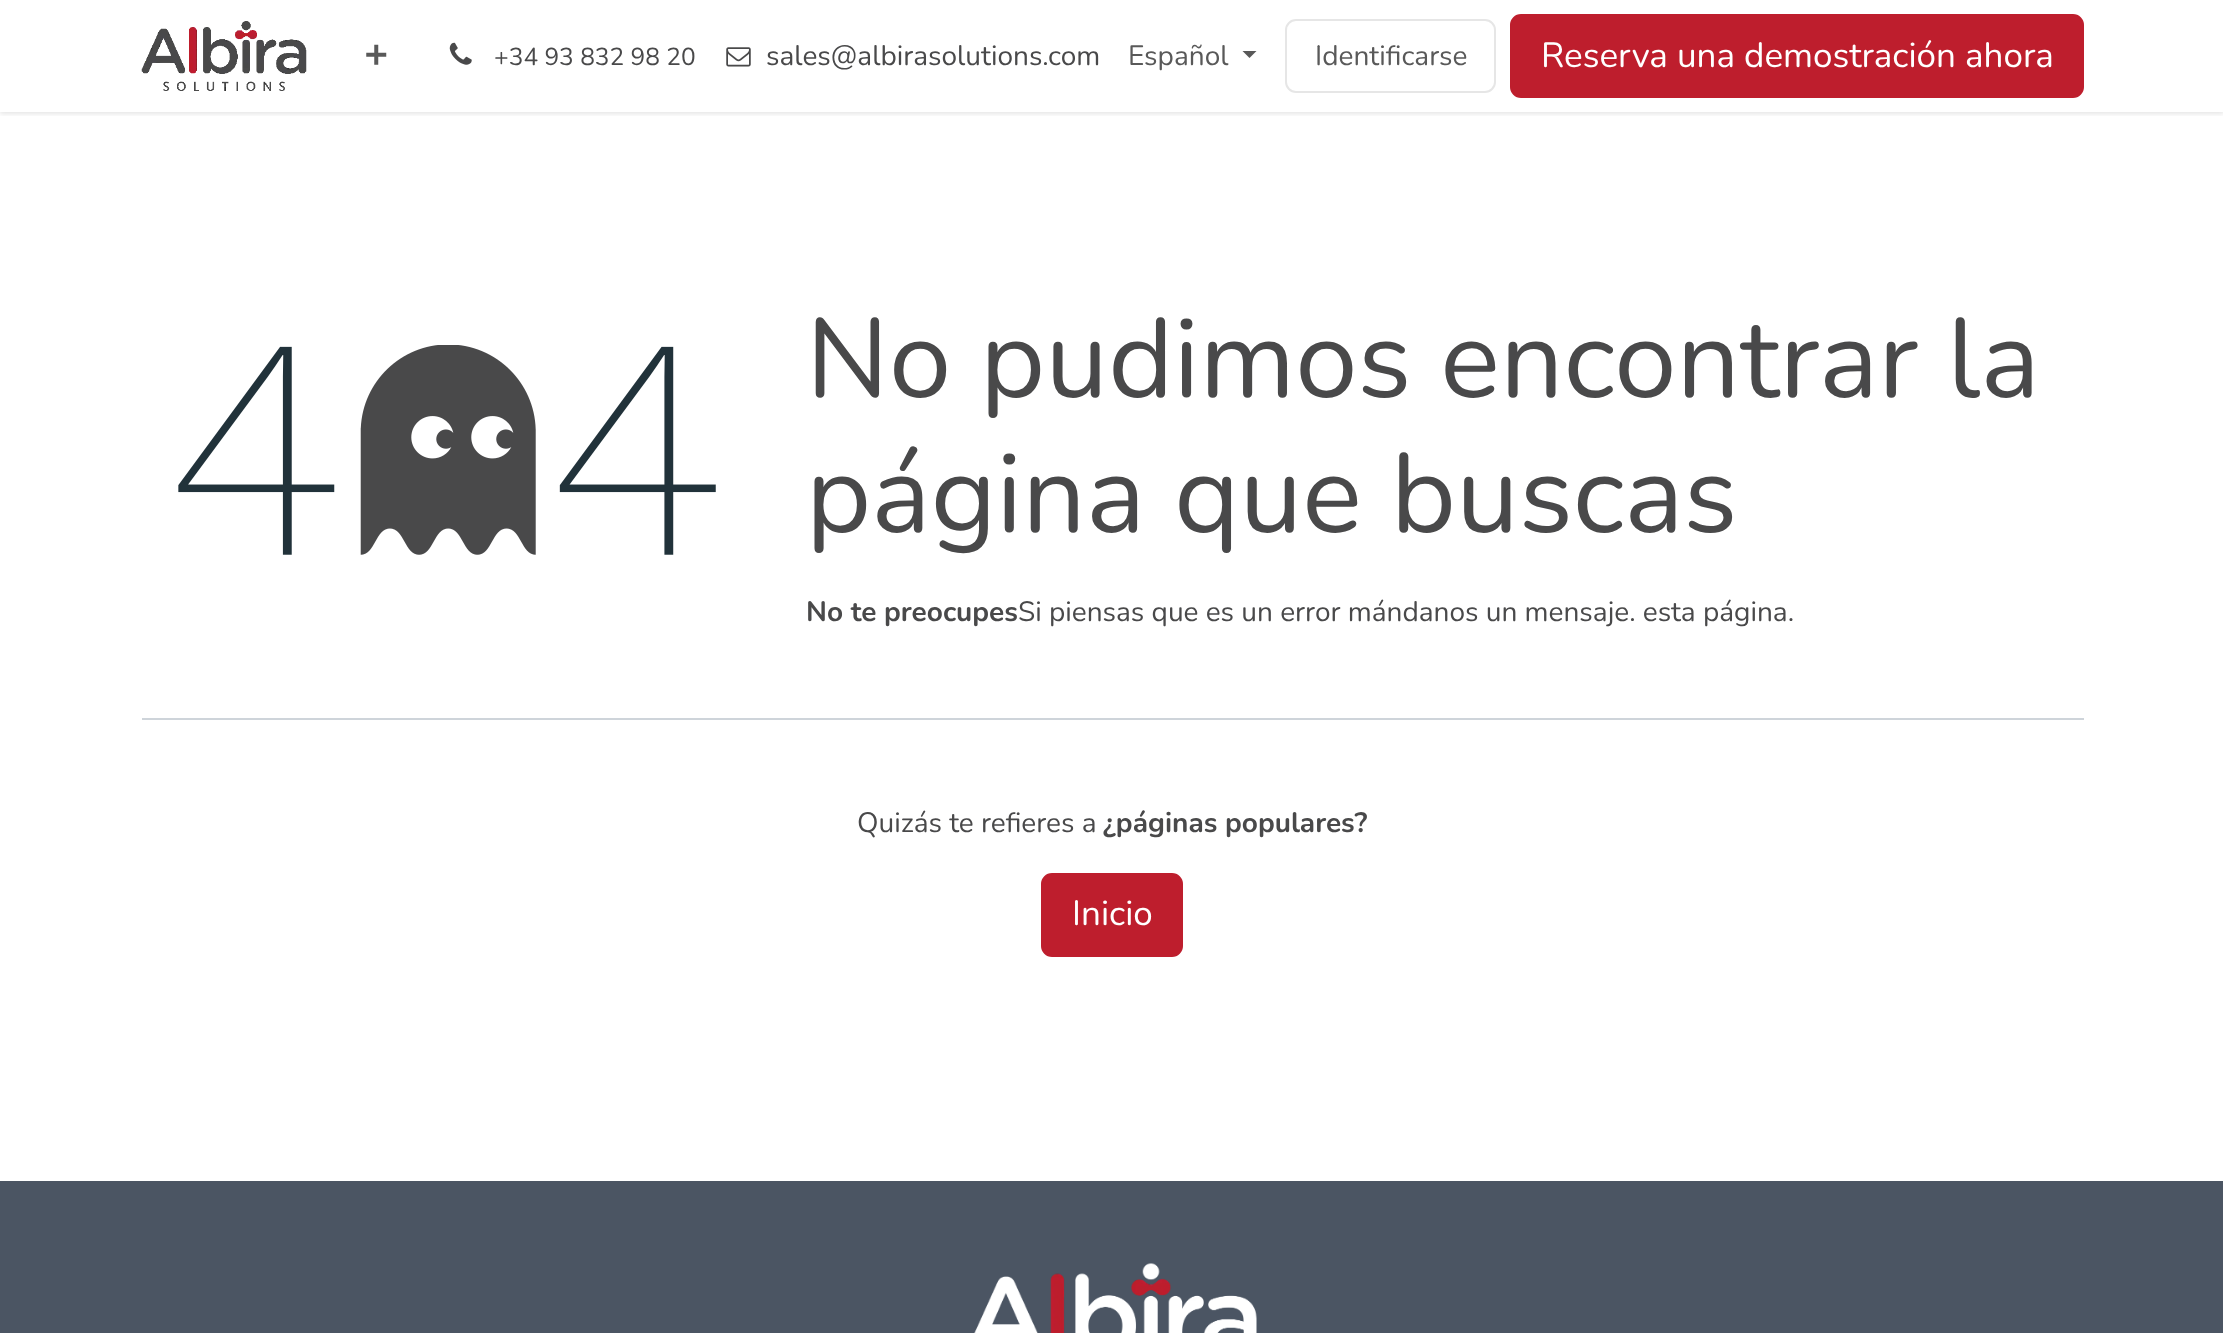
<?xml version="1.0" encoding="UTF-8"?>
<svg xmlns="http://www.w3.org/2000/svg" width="2223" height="1333">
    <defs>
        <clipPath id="clip1"><rect x="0" y="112" width="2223" height="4"/></clipPath>
        <filter id="blur1" x="-50%" y="-200%" width="200%" height="500%"><feGaussianBlur stdDeviation="2.5"/></filter>
    </defs>
    <rect width="100%" height="100%" fill="#FFFFFF"/>
    <g clip-path="url(#clip1)">
        <rect x="0" y="2" width="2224" height="112" fill="#000000" fill-opacity="0.1" filter="url(#blur1)"/>
    </g>
    <image x="141" y="21" width="166" height="70" href="img_01.png"/>
    <image x="366" y="44" width="21" height="21" href="img_02.png"/>
    <image x="449" y="42" width="23" height="23" href="img_03.png"/>
    <text x="494" y="65" font-family="Nunito" font-size="24.5" fill="#49494A">+34 93 832 98 20</text>
    <image x="726" y="47" width="25" height="20" href="img_04.png"/>
    <text x="766" y="65" font-family="Nunito" font-size="28" fill="#49494A">sales@albirasolutions.com</text>
    <text x="1128" y="65" font-family="Nunito" font-size="28" fill="#595959">Español</text>
    <path d="M 1242.5 51 H 1256.5 L 1249.5 58 Z" fill="#595959"/>
    <rect x="1286" y="20" width="209" height="72" rx="10" fill="none" stroke="#E6E6E6" stroke-width="2"/>
    <text x="1315" y="65" font-family="Nunito" font-size="28" fill="#595959">Identificarse</text>
    <rect x="1511" y="15" width="572" height="82" rx="10" fill="#BE1E2D" stroke="#BE1E2D" stroke-width="2"/>
    <text x="1541" y="67" font-family="Nunito" font-size="35" fill="#FFFFFF">Reserva una demostración ahora</text>
    <image x="178" y="345" width="538" height="210" href="img_05.png"/>
    <text font-family="Nunito" font-size="112" fill="#49494A">
        <tspan x="806" y="397">No pudimos encontrar la</tspan>
        <tspan x="806" y="532">página que buscas</tspan>
    </text>
    <text x="806" y="621" font-family="Nunito" font-size="28" font-weight="700" fill="#49494A">No te preocupes</text>
    <text x="1018" y="621" font-family="Nunito" font-size="28" fill="#49494A">Si piensas que es un error mándanos un mensaje. esta página.</text>
    <rect x="142" y="718" width="1942" height="2" fill="#CED4DA"/>
    <text x="857" y="832" font-family="Nunito" font-size="28" fill="#49494A">Quizás te refieres a</text>
    <text x="1103" y="832" font-family="Nunito" font-size="28" font-weight="700" fill="#49494A">¿páginas populares?</text>
    <rect x="1042" y="874" width="140" height="82" rx="10" fill="#BE1E2D" stroke="#BE1E2D" stroke-width="2"/>
    <text x="1072" y="925" font-family="Nunito" font-size="35" fill="#FFFFFF">Inicio</text>
    <rect x="0" y="1181" width="2223" height="152" fill="#4B5563"/>
    <image x="974" y="1263" width="283" height="70" href="img_06.png"/>
</svg>
